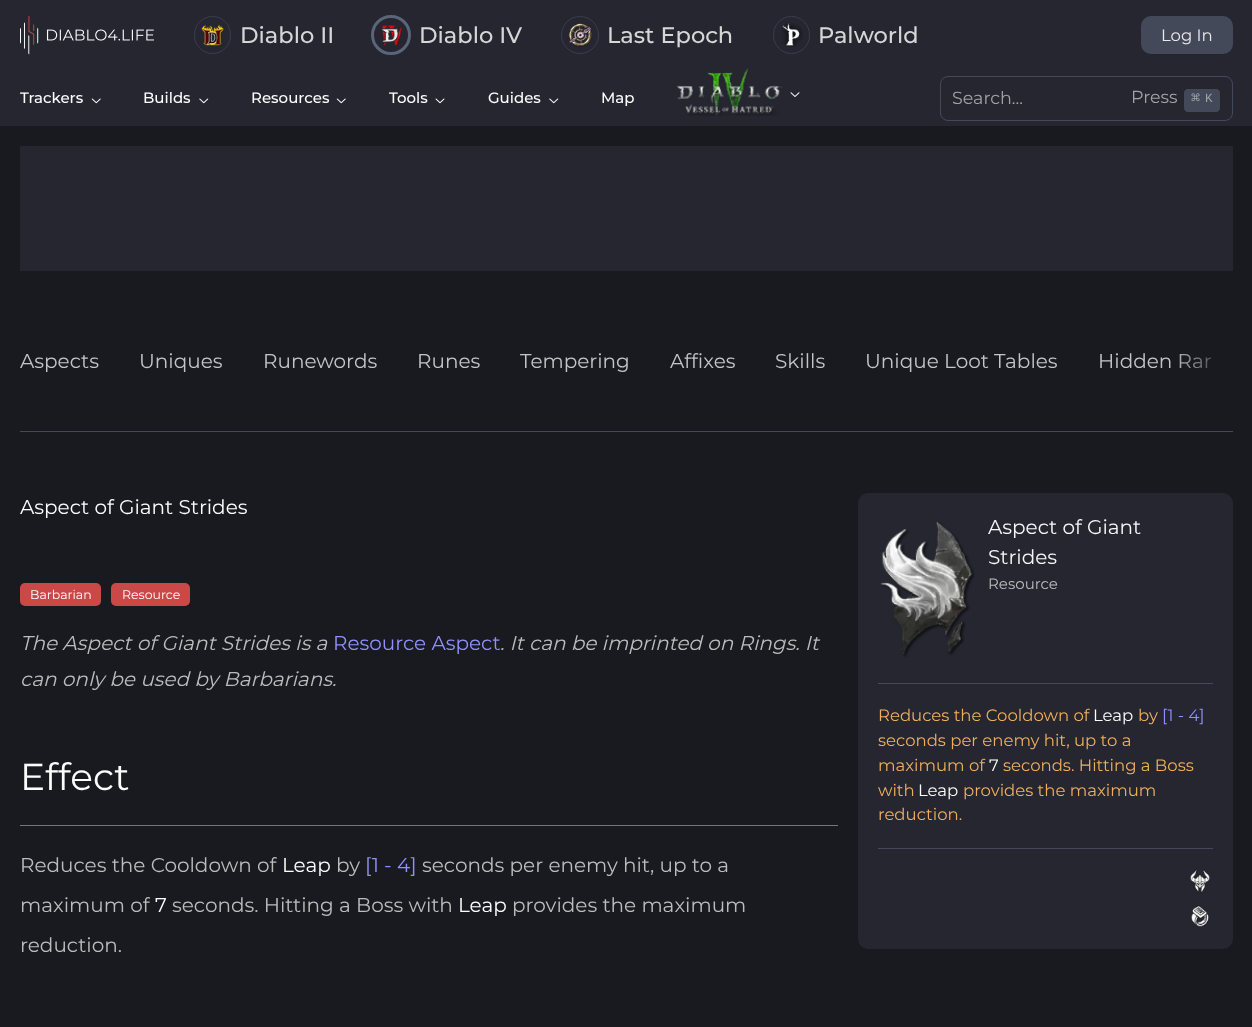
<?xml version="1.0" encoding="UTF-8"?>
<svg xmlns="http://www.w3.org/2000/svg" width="1252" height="1027">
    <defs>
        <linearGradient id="g1" gradientUnits="userSpaceOnUse" x1="1233" y1="361" x2="1170" y2="361"><stop offset="0" stop-color="#191920"/><stop offset="1" stop-color="#191920" stop-opacity="0"/></linearGradient>
    </defs>
    <rect width="100%" height="100%" fill="#191920"/>
    <rect x="0" y="0" width="1252" height="126" fill="#252630"/>
    <image x="20" y="15" width="134" height="40" href="img_01.png"/>
    <image x="201" y="24" width="23" height="22" href="img_02.png"/>
    <rect x="194.5" y="16.5" width="36" height="37" rx="18" fill="none" stroke="#393E4C"/>
    <text x="240" y="43" font-family="Montserrat" font-size="22.5" font-weight="500" fill="#D6D6D6">Diablo II</text>
    <image x="381" y="25" width="21" height="21" href="img_03.png"/>
    <circle cx="391" cy="35" r="18.5" fill="none" stroke="#5A657A" stroke-width="3"/>
    <text x="419" y="43" font-family="Montserrat" font-size="22.5" font-weight="500" fill="#D6D6D6">Diablo IV</text>
    <image x="569" y="23" width="23" height="24" href="img_04.png"/>
    <circle cx="580" cy="35" r="18.5" fill="none" stroke="#393E4C"/>
    <text x="607" y="43" font-family="Montserrat" font-size="22.5" font-weight="500" fill="#D6D6D6">Last Epoch</text>
    <image x="781" y="23" width="22" height="24" href="img_05.png"/>
    <rect x="773.5" y="16.5" width="36" height="37" rx="18" fill="none" stroke="#393E4C"/>
    <text x="818" y="43" font-family="Montserrat" font-size="22.5" font-weight="500" fill="#D6D6D6">Palworld</text>
    <rect x="1141" y="16" width="92" height="38" rx="10" fill="#44495A"/>
    <text x="1161" y="41" font-family="Montserrat" font-size="16.5" fill="#EAEAEA">Log In</text>
    <text x="20" y="103" font-family="Montserrat" font-size="15" font-weight="500" fill="#FDFDFD">Trackers</text>
    <image x="91" y="98" width="10" height="6" href="img_06.png"/>
    <text x="143" y="103" font-family="Montserrat" font-size="15" font-weight="500" fill="#FDFDFD">Builds</text>
    <image x="199" y="98" width="10" height="6" href="img_07.png"/>
    <text x="251" y="103" font-family="Montserrat" font-size="15" font-weight="500" fill="#FDFDFD">Resources</text>
    <image x="336" y="98" width="10" height="6" href="img_06.png"/>
    <text x="389" y="103" font-family="Montserrat" font-size="15" font-weight="500" fill="#FDFDFD">Tools</text>
    <image x="435" y="98" width="10" height="6" href="img_08.png"/>
    <text x="488" y="103" font-family="Montserrat" font-size="15" font-weight="500" fill="#FDFDFD">Guides</text>
    <image x="549" y="98" width="10" height="6" href="img_07.png"/>
    <text x="601" y="103" font-family="Montserrat" font-size="15" font-weight="500" fill="#FDFDFD">Map</text>
    <image x="677" y="68" width="106" height="48" href="img_09.png"/>
    <image x="790" y="92" width="10" height="5" href="img_10.png"/>
    <rect x="940.5" y="76.5" width="292" height="44" rx="7.5" fill="none" stroke="#44495A"/>
    <text x="952" y="104" font-family="Montserrat" font-size="17.5" fill="#A3A3A3">Search...</text>
    <text x="1131" y="103" font-family="Montserrat" font-size="17.5" fill="#A3A3A3">Press</text>
    <rect x="1183.5" y="88.5" width="37" height="24" rx="4.5" fill="#44495A" stroke="#262626"/>
    <text x="1191" y="103" font-family="DejaVu Sans Mono" font-size="15" fill="#A3A3A3">⌘</text>
    <text x="1205" y="102" font-family="Liberation Mono" font-size="12.5" fill="#A3A3A3">K</text>
    <rect x="20" y="146" width="1213" height="125" fill="#252630"/>
    <text x="20" y="368" font-family="Montserrat" font-size="20" fill="#C4C4C6">Aspects</text>
    <text x="139" y="368" font-family="Montserrat" font-size="20" fill="#C4C4C6">Uniques</text>
    <text x="263" y="368" font-family="Montserrat" font-size="20" fill="#C4C4C6">Runewords</text>
    <text x="417" y="368" font-family="Montserrat" font-size="20" fill="#C4C4C6">Runes</text>
    <text x="520" y="368" font-family="Montserrat" font-size="20" fill="#C4C4C6">Tempering</text>
    <text x="670" y="368" font-family="Montserrat" font-size="20" fill="#C4C4C6">Affixes</text>
    <text x="775" y="368" font-family="Montserrat" font-size="20" fill="#C4C4C6">Skills</text>
    <text x="865" y="368" font-family="Montserrat" font-size="20" fill="#C4C4C6">Unique Loot Tables</text>
    <text x="1098" y="368" font-family="Montserrat" font-size="20" fill="#C4C4C6">Hidden Rar</text>
    <rect x="1180" y="354" width="32" height="15" fill="url(#g1)"/>
    <rect x="20" y="431" width="1213" height="1" fill="#44495A"/>
    <text x="20" y="514" font-family="Montserrat" font-size="20" fill="#FDFDFD">Aspect of Giant Strides</text>
    <rect x="20" y="583" width="81" height="23" rx="5" fill="#CB4848"/>
    <text x="30" y="599" font-family="Montserrat" font-size="12.5" fill="#FDFDFD">Barbarian</text>
    <rect x="111" y="583" width="79" height="23" rx="5" fill="#CB4848"/>
    <text x="122" y="599" font-family="Montserrat" font-size="12.5" fill="#FDFDFD">Resource</text>
    <text x="20" y="650" font-family="Montserrat" font-size="20" font-style="italic" fill="#BCBCBC">The Aspect of Giant Strides is a</text>
    <text x="333" y="650" font-family="Montserrat" font-size="20" fill="#9090FC">Resource Aspect</text>
    <text x="500" y="650" font-family="Montserrat" font-size="20" font-style="italic" fill="#BCBCBC">. It can be imprinted on Rings. It</text>
    <text x="20" y="686" font-family="Montserrat" font-size="20" font-style="italic" fill="#BCBCBC">can only be used by Barbarians.</text>
    <rect x="20" y="825" width="818" height="1" fill="#767676"/>
    <text x="20" y="790" font-family="Montserrat" font-size="37.5" fill="#FDFDFD">Effect</text>
    <text x="20" y="872" font-family="Montserrat" font-size="20" fill="#BCBCBC">Reduces the Cooldown of</text>
    <text x="282" y="872" font-family="Montserrat" font-size="20" fill="#FDFDFD">Leap</text>
    <text x="336" y="872" font-family="Montserrat" font-size="20" fill="#BCBCBC">by</text>
    <text x="365" y="872" font-family="Montserrat" font-size="20" fill="#9090FC">[1 - 4]</text>
    <text x="422" y="872" font-family="Montserrat" font-size="20" fill="#BCBCBC">seconds per enemy hit, up to a</text>
    <text x="20" y="912" font-family="Montserrat" font-size="20" fill="#BCBCBC">maximum of</text>
    <text x="155" y="912" font-family="Montserrat" font-size="20" fill="#FDFDFD">7</text>
    <text x="172" y="912" font-family="Montserrat" font-size="20" fill="#BCBCBC">seconds. Hitting a Boss with</text>
    <text x="458" y="912" font-family="Montserrat" font-size="20" fill="#FDFDFD">Leap</text>
    <text x="512" y="912" font-family="Montserrat" font-size="20" fill="#BCBCBC">provides the maximum</text>
    <text x="20" y="952" font-family="Montserrat" font-size="20" fill="#BCBCBC">reduction.</text>
    <rect x="858" y="493" width="375" height="456" rx="10" fill="#252630"/>
    <image x="880" y="521" width="95" height="136" href="img_11.png"/>
    <text font-family="Montserrat" font-size="20" fill="#F6F6F6">
        <tspan x="988" y="534">Aspect of Giant</tspan>
        <tspan x="988" y="564">Strides</tspan>
    </text>
    <text x="988" y="589" font-family="Montserrat" font-size="15" fill="#BCBCBC">Resource</text>
    <rect x="878" y="683" width="335" height="1" fill="#44495A"/>
    <text x="878" y="721" font-family="Montserrat" font-size="16.5" fill="#F0AF5F">Reduces the Cooldown of</text>
    <text x="1093" y="721" font-family="Montserrat" font-size="16.5" fill="#FDFDFD">Leap</text>
    <text x="1138" y="721" font-family="Montserrat" font-size="16.5" fill="#F0AF5F">by</text>
    <text x="1162" y="721" font-family="Montserrat" font-size="16.5" fill="#9090FC">[1 - 4]</text>
    <text font-family="Montserrat" font-size="16.5" fill="#F0AF5F">
        <tspan x="878" y="746">seconds per enemy hit, up to a</tspan>
        <tspan x="878" y="771">maximum of</tspan>
    </text>
    <text x="989" y="771" font-family="Montserrat" font-size="16.5" fill="#FDFDFD">7</text>
    <text x="1003" y="771" font-family="Montserrat" font-size="16.5" fill="#F0AF5F">seconds. Hitting a Boss</text>
    <text x="878" y="796" font-family="Montserrat" font-size="16.5" fill="#F0AF5F">with</text>
    <text x="918" y="796" font-family="Montserrat" font-size="16.5" fill="#FDFDFD">Leap</text>
    <text x="963" y="796" font-family="Montserrat" font-size="16.5" fill="#F0AF5F">provides the maximum</text>
    <text x="878" y="820" font-family="Montserrat" font-size="16.5" fill="#F0AF5F">reduction.</text>
    <rect x="878" y="848" width="335" height="1" fill="#44495A"/>
    <image x="1190" y="869" width="20" height="24" href="img_12.png"/>
    <image x="1191" y="905" width="18" height="22" href="img_13.png"/>
</svg>
